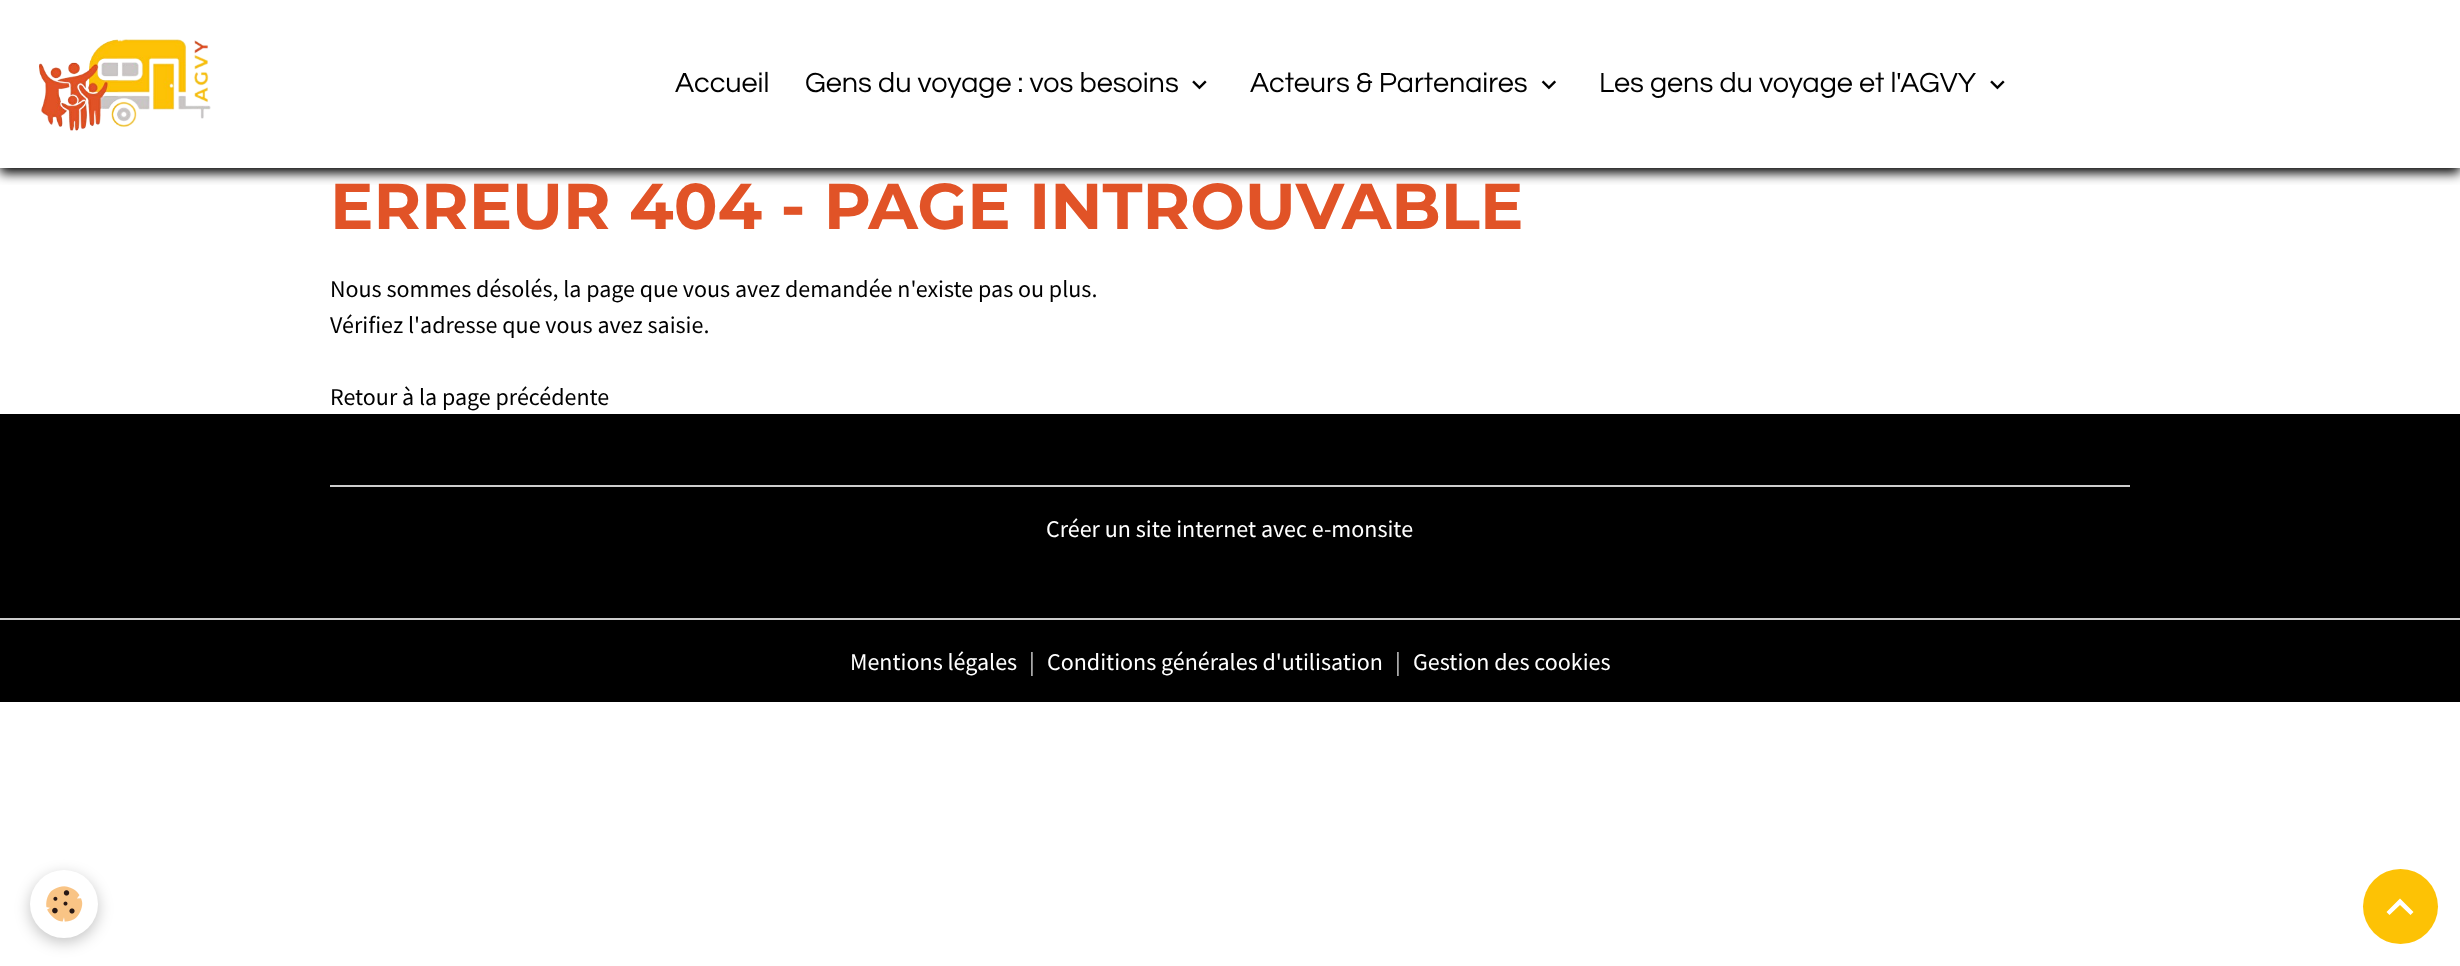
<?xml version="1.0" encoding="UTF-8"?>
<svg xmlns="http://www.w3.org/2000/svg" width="2460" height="966">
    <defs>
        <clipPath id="clip1"><rect x="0" y="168" width="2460" height="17"/></clipPath>
        <filter id="blur1" x="-50%" y="-200%" width="200%" height="500%"><feGaussianBlur stdDeviation="6"/></filter>
        <filter id="blur2" x="-50%" y="-200%" width="200%" height="500%"><feGaussianBlur stdDeviation="7.5"/></filter>
    </defs>
    <rect width="100%" height="100%" fill="#FFFFFF"/>
    <g clip-path="url(#clip1)">
        <rect x="0" y="5" width="2460" height="168" fill="#000000" filter="url(#blur1)"/>
    </g>
    <image x="39" y="39" width="172" height="92" href="img_01.png"/>
    <text x="675" y="92" font-family="Questrial" font-size="28.75" fill="#000000">Accueil</text>
    <text x="805" y="92" font-family="Questrial" font-size="28.75" fill="#000000">Gens du voyage : vos besoins</text>
    <image x="1192" y="80" width="15" height="10" href="img_02.png"/>
    <text x="1250" y="92" font-family="Questrial" font-size="28.75" fill="#000000">Acteurs &amp; Partenaires</text>
    <image x="1541" y="80" width="15" height="10" href="img_03.png"/>
    <text x="1599" y="92" font-family="Questrial" font-size="28.75" fill="#000000">Les gens du voyage et l'AGVY</text>
    <image x="1990" y="80" width="15" height="10" href="img_02.png"/>
    <text x="330" y="229" font-family="Montserrat" font-size="64.75" font-weight="700" fill="#E15327">ERREUR 404 - PAGE INTROUVABLE</text>
    <text font-family="Source Sans Pro" font-size="24" fill="#000000">
        <tspan x="330" y="297">Nous sommes désolés, la page que vous avez demandée n'existe pas ou plus.</tspan>
        <tspan x="330" y="333">Vérifiez l'adresse que vous avez saisie.</tspan>
    </text>
    <text x="330" y="405" font-family="Source Sans Pro" font-size="24" fill="#000000">Retour à la page précédente</text>
    <rect x="0" y="414" width="2460" height="288" fill="#000000"/>
    <rect x="330" y="485" width="1800" height="2" fill="#CCCCCC"/>
    <text x="1046" y="537" font-family="Source Sans Pro" font-size="24" fill="#FFFFFF">Créer un site internet avec e-monsite</text>
    <rect x="0" y="618" width="2460" height="2" fill="#CCCCCC"/>
    <text x="850" y="670" font-family="Source Sans Pro" font-size="24" fill="#FFFFFF">Mentions légales</text>
    <text x="1029" y="670" font-family="Source Sans Pro" font-size="24" fill="#CCCCCC">|</text>
    <text x="1047" y="670" font-family="Source Sans Pro" font-size="24" fill="#FFFFFF">Conditions générales d'utilisation</text>
    <text x="1395" y="670" font-family="Source Sans Pro" font-size="24" fill="#CCCCCC">|</text>
    <text x="1413" y="670" font-family="Source Sans Pro" font-size="24" fill="#FFFFFF">Gestion des cookies</text>
    <rect x="30" y="875" width="68" height="67" rx="33.5" fill="#000000" fill-opacity="0.24" filter="url(#blur2)"/>
    <circle cx="64" cy="904" r="34" fill="#FFFFFF"/>
    <image x="46" y="886" width="37" height="36" href="img_04.png"/>
    <circle cx="2400.5" cy="906.5" r="37.5" fill="#FDC205"/>
    <path d="M 2400 898.5 L 2413.5 912 L 2410.5 915 L 2400 905 L 2389.5 915 L 2386.5 912 Z" fill="#FFFFFF"/>
</svg>
